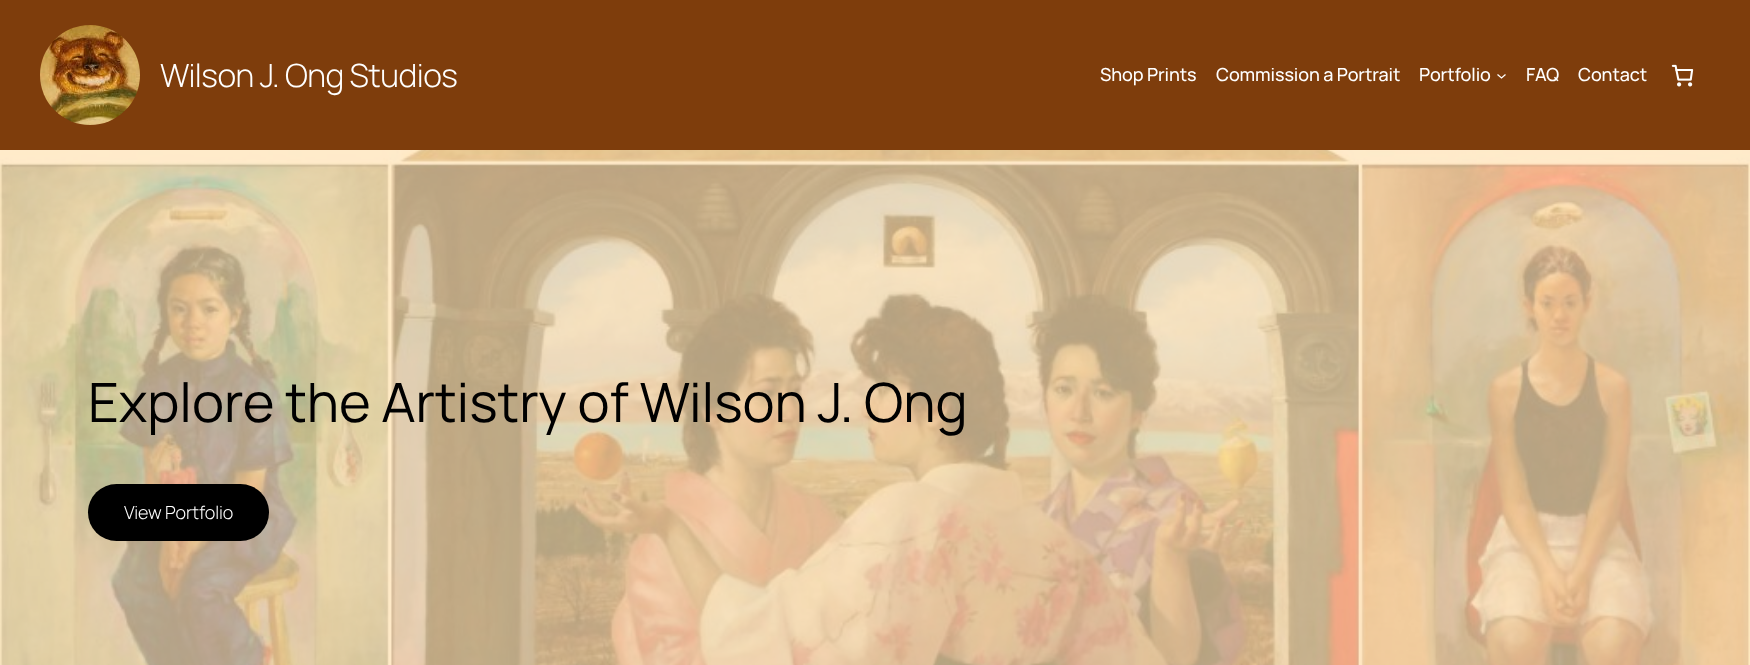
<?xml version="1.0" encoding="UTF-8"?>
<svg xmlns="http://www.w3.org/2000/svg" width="1750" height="665">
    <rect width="100%" height="100%" fill="#7E3D0C"/>
    <image x="40" y="25" width="100" height="100" href="img_01.png"/>
    <text x="160" y="87" font-family="Manrope" font-size="32" font-weight="300" letter-spacing="-0.5" fill="#FFFFFF">Wilson J. Ong Studios</text>
    <text x="1100" y="81" font-family="Manrope" font-size="18" font-weight="500" letter-spacing="-0.1" fill="#FFFFFF">Shop Prints</text>
    <text x="1216" y="81" font-family="Manrope" font-size="18" font-weight="500" letter-spacing="-0.1" fill="#FFFFFF">Commission a Portrait</text>
    <text x="1419" y="81" font-family="Manrope" font-size="18" font-weight="500" letter-spacing="-0.1" fill="#FFFFFF">Portfolio</text>
    <path d="M 1497.5 74.5 L 1501.5 78 L 1505.5 74.5" fill="none" stroke="#FFFFFF" stroke-width="1.3"/>
    <text x="1526" y="81" font-family="Manrope" font-size="18" font-weight="500" letter-spacing="-0.1" fill="#FFFFFF">FAQ</text>
    <text x="1578" y="81" font-family="Manrope" font-size="18" font-weight="500" letter-spacing="-0.1" fill="#FFFFFF">Contact</text>
    <image x="1671" y="64" width="23" height="23" href="img_02.png"/>
    <image x="0" y="150" width="1750" height="515" href="img_03.png"/>
    <text x="88" y="422" font-family="Manrope" font-size="54.25" letter-spacing="-0.1" fill="#000000">Explore the Artistry of Wilson J. Ong</text>
    <rect x="88" y="484" width="181" height="57" rx="28.5" fill="#000000"/>
    <text x="124" y="519" font-family="Manrope" font-size="18" font-weight="300" letter-spacing="-0.1" fill="#FFFFFF">View Portfolio</text>
</svg>
